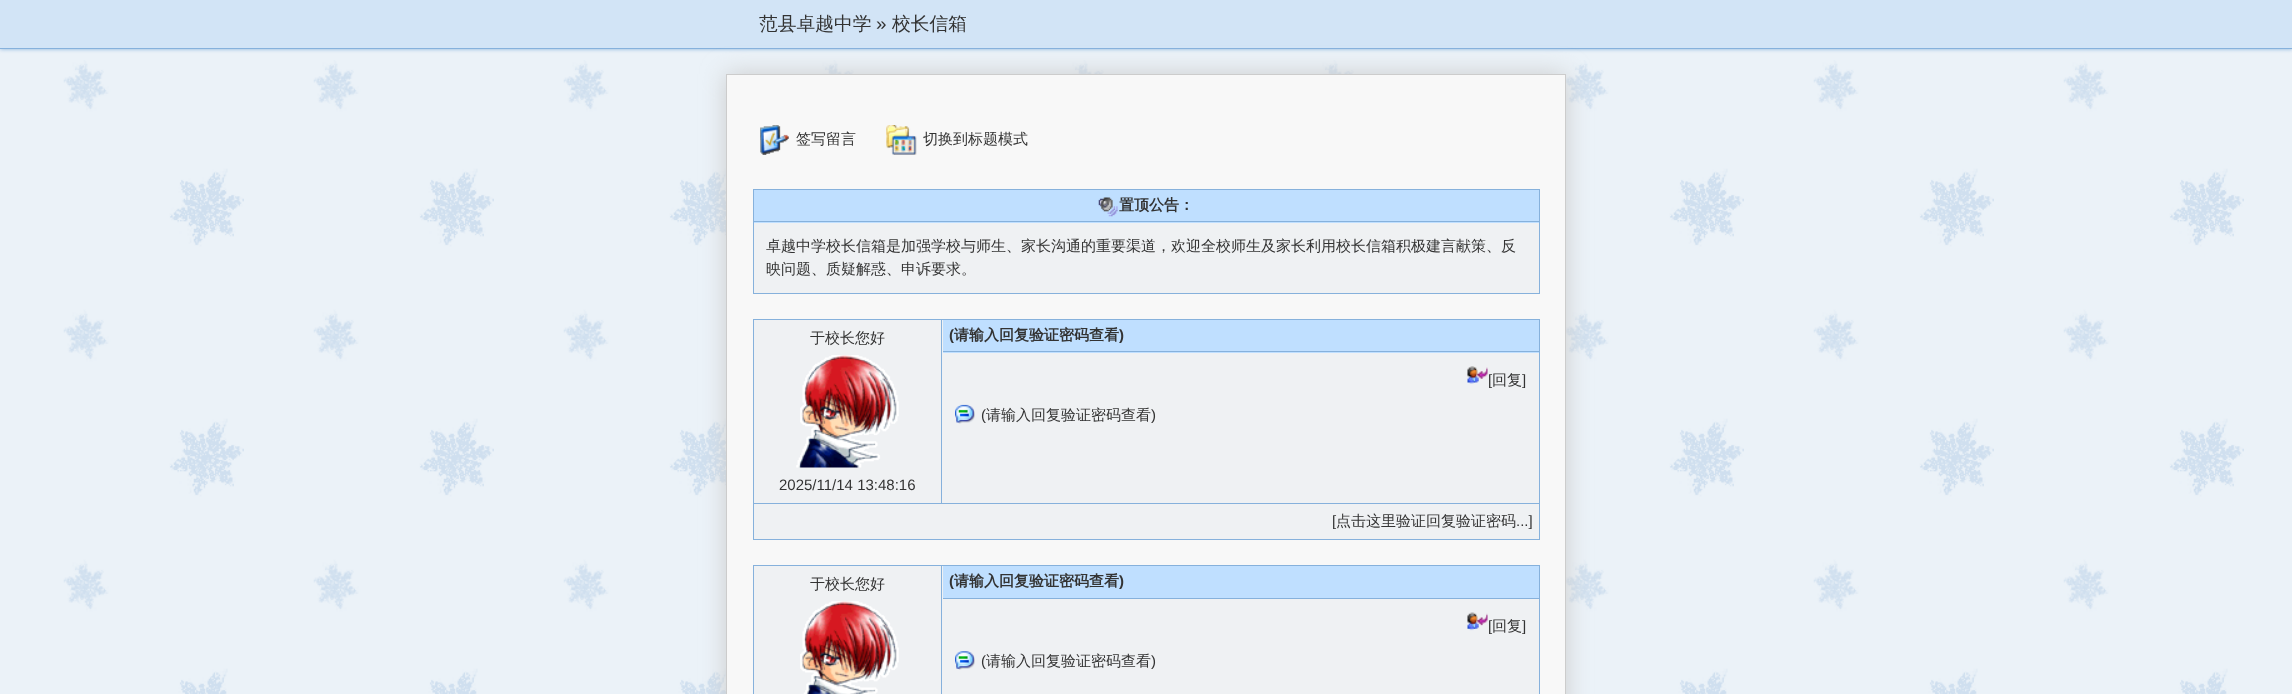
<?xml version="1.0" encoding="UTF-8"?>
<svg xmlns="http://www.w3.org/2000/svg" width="2292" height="694">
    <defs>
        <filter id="blur1" x="-50%" y="-200%" width="200%" height="500%"><feGaussianBlur stdDeviation="2"/></filter>
        <filter id="blur2" x="-50%" y="-200%" width="200%" height="500%"><feGaussianBlur stdDeviation="12.5"/></filter>
        <clipPath id="clip1"><rect x="753" y="320" width="787" height="220"/></clipPath>
        <clipPath id="clip2"><rect x="753" y="566" width="787" height="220"/></clipPath>
    </defs>
    <rect width="100%" height="100%" fill="#EBF2F8"/>
    <image x="63" y="60" width="2181" height="634" href="img_01.png"/>
    <rect x="0" y="0" width="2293" height="49" fill="#86B1DC" filter="url(#blur1)"/>
    <rect x="0" y="0" width="2292" height="48" fill="#D2E4F6"/>
    <rect x="0" y="48" width="2292" height="1" fill="#86B1DC"/>
    <text x="759" y="30" font-family="WenQuanYi Zen Hei" font-size="18.75" font-weight="500" fill="#333333">范县卓越中学</text>
    <text x="876" y="30" font-family="Liberation Sans" font-size="18.75" fill="#333333">»</text>
    <text x="892" y="30" font-family="WenQuanYi Zen Hei" font-size="18.75" font-weight="500" fill="#333333">校长信箱</text>
    <rect x="726" y="74" width="840" height="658" fill="#CCCCCC" filter="url(#blur2)"/>
    <rect x="726.5" y="74.5" width="839" height="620" fill="#F8F8F8" stroke="#CCCCCC"/>
    <image x="760" y="125" width="29" height="30" href="img_02.png"/>
    <text x="796" y="144" font-family="WenQuanYi Zen Hei" font-size="15" font-weight="500" fill="#333333">签写留言</text>
    <image x="886" y="125" width="31" height="30" href="img_03.png"/>
    <text x="923" y="144" font-family="WenQuanYi Zen Hei" font-size="15" font-weight="500" fill="#333333">切换到标题模式</text>
    <rect x="754" y="223" width="785" height="70" fill="#EFF1F3"/>
    <rect x="753.5" y="189.5" width="786" height="104" fill="none" stroke="#86B1DC"/>
    <rect x="754" y="190" width="785" height="33" fill="#BFDFFF"/>
    <rect x="754" y="221" width="785" height="1" fill="#86B1DC"/>
    <image x="1098" y="197" width="20" height="20" href="img_04.png"/>
    <text x="1119" y="210" font-family="WenQuanYi Zen Hei" font-size="15" font-weight="700" fill="#333333">置顶公告：</text>
    <text font-family="WenQuanYi Zen Hei" font-size="15" font-weight="500" fill="#333333">
        <tspan x="766" y="251">卓越中学校长信箱是加强学校与师生、家长沟通的重要渠道，欢迎全校师生及家长利用校长信箱积极建言献策、反</tspan>
        <tspan x="766" y="274">映问题、质疑解惑、申诉要求。</tspan>
    </text>
    <rect x="754" y="320" width="785" height="219" fill="#EFF1F3"/>
    <rect x="753" y="319" width="787" height="1" fill="#86B1DC"/>
    <rect x="753.5" y="503.5" width="786" height="36" fill="none" stroke="#86B1DC"/>
    <g clip-path="url(#clip1)">
        <rect x="753.5" y="319.5" width="786" height="184" fill="none" stroke="#86B1DC"/>
    </g>
    <rect x="941" y="320" width="1" height="183" fill="#86B1DC"/>
    <text x="810" y="343" font-family="WenQuanYi Zen Hei" font-size="15" font-weight="500" fill="#333333">于校长您好</text>
    <image x="796" y="355" width="103" height="113" href="img_05.png"/>
    <text x="779" y="490" font-family="Liberation Sans" font-size="15" fill="#333333">2025/11/14 13:48:16</text>
    <rect x="943" y="320" width="596" height="33" fill="#BFDFFF"/>
    <rect x="943" y="351" width="596" height="1" fill="#86B1DC"/>
    <text x="949" y="340" font-family="Liberation Sans" font-size="15" font-weight="700" fill="#333333">(</text>
    <text x="954" y="340" font-family="WenQuanYi Zen Hei" font-size="15" font-weight="700" fill="#333333">请输入回复验证密码查看</text>
    <text x="1119" y="340" font-family="Liberation Sans" font-size="15" font-weight="700" fill="#333333">)</text>
    <image x="1467" y="366" width="21" height="18" href="img_06.png"/>
    <text x="1488" y="385" font-family="Liberation Sans" font-size="15" fill="#333333">[</text>
    <text x="1492" y="385" font-family="WenQuanYi Zen Hei" font-size="15" font-weight="500" fill="#333333">回复</text>
    <text x="1522" y="385" font-family="Liberation Sans" font-size="15" fill="#333333">]</text>
    <image x="955" y="404" width="20" height="20" href="img_07.png"/>
    <text x="981" y="420" font-family="Liberation Sans" font-size="15" fill="#333333">(</text>
    <text x="986" y="420" font-family="WenQuanYi Zen Hei" font-size="15" font-weight="500" fill="#333333">请输入回复验证密码查看</text>
    <text x="1151" y="420" font-family="Liberation Sans" font-size="15" fill="#333333">)</text>
    <text x="1332" y="526" font-family="Liberation Sans" font-size="15" fill="#333333">[</text>
    <text x="1336" y="526" font-family="WenQuanYi Zen Hei" font-size="15" font-weight="500" fill="#333333">点击这里验证回复验证密码</text>
    <text x="1516" y="526" font-family="Liberation Sans" font-size="15" fill="#333333">...]</text>
    <rect x="754" y="566" width="785" height="128" fill="#EFF1F3"/>
    <rect x="753" y="565" width="787" height="1" fill="#86B1DC"/>
    <g clip-path="url(#clip2)">
        <rect x="753.5" y="565.5" width="786" height="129" fill="none" stroke="#86B1DC"/>
    </g>
    <rect x="941" y="566" width="1" height="128" fill="#86B1DC"/>
    <text x="810" y="589" font-family="WenQuanYi Zen Hei" font-size="15" font-weight="500" fill="#333333">于校长您好</text>
    <image x="800" y="601" width="99" height="93" href="img_08.png"/>
    <rect x="943" y="566" width="596" height="32" fill="#BFDFFF"/>
    <rect x="943" y="598" width="596" height="1" fill="#86B1DC"/>
    <text x="949" y="586" font-family="Liberation Sans" font-size="15" font-weight="700" fill="#333333">(</text>
    <text x="954" y="586" font-family="WenQuanYi Zen Hei" font-size="15" font-weight="700" fill="#333333">请输入回复验证密码查看</text>
    <text x="1119" y="586" font-family="Liberation Sans" font-size="15" font-weight="700" fill="#333333">)</text>
    <image x="1467" y="612" width="21" height="19" href="img_09.png"/>
    <text x="1488" y="631" font-family="Liberation Sans" font-size="15" fill="#333333">[</text>
    <text x="1492" y="631" font-family="WenQuanYi Zen Hei" font-size="15" font-weight="500" fill="#333333">回复</text>
    <text x="1522" y="631" font-family="Liberation Sans" font-size="15" fill="#333333">]</text>
    <image x="955" y="651" width="20" height="19" href="img_10.png"/>
    <text x="981" y="666" font-family="Liberation Sans" font-size="15" fill="#333333">(</text>
    <text x="986" y="666" font-family="WenQuanYi Zen Hei" font-size="15" font-weight="500" fill="#333333">请输入回复验证密码查看</text>
    <text x="1151" y="666" font-family="Liberation Sans" font-size="15" fill="#333333">)</text>
</svg>
